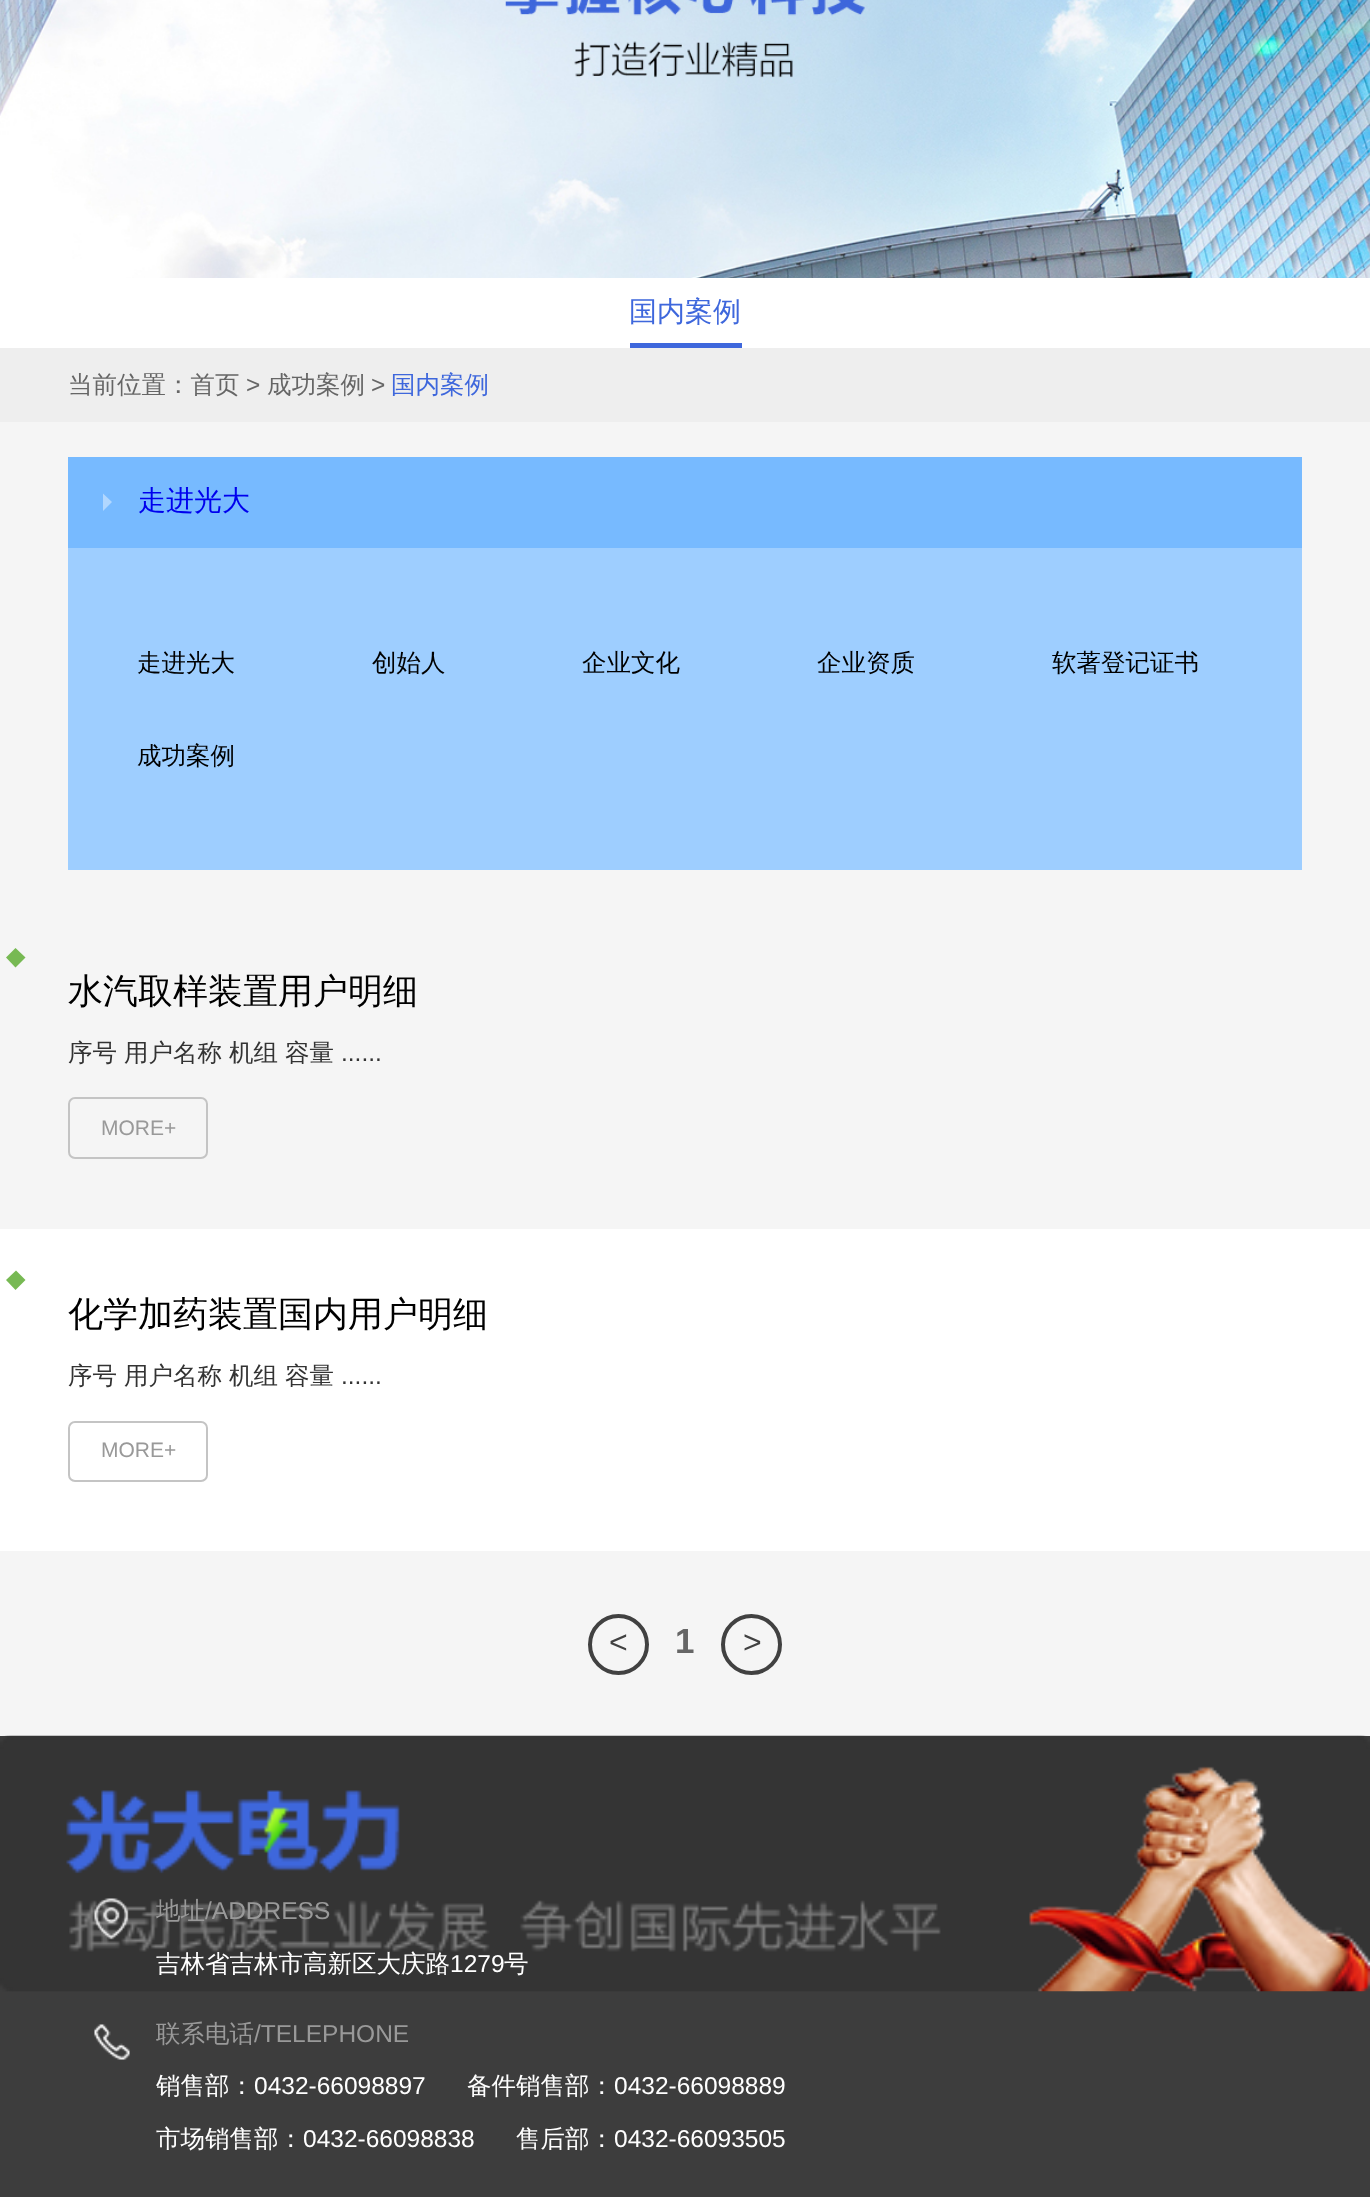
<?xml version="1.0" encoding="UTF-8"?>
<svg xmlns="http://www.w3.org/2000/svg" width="1370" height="2197">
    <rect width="100%" height="100%" fill="#F5F5F5"/>
    <image x="0" y="0" width="1370" height="278" href="img_01.png"/>
    <rect x="0" y="278" width="1370" height="70" fill="#FFFFFF"/>
    <text x="629" y="321" font-family="WenQuanYi Zen Hei" font-size="28" font-weight="500" fill="#3E67DC">国内案例</text>
    <rect x="630" y="343" width="112" height="5" fill="#3E67DC"/>
    <rect x="0" y="348" width="1370" height="74" fill="#EEEEEE"/>
    <text x="68" y="393" font-family="WenQuanYi Zen Hei" font-size="24.5" font-weight="500" fill="#666666">当前位置：首页</text>
    <text x="246" y="393" font-family="Liberation Sans" font-size="24.5" fill="#666666">&gt;</text>
    <text x="267" y="393" font-family="WenQuanYi Zen Hei" font-size="24.5" font-weight="500" fill="#666666">成功案例</text>
    <text x="371" y="393" font-family="Liberation Sans" font-size="24.5" fill="#666666">&gt;</text>
    <text x="391" y="393" font-family="WenQuanYi Zen Hei" font-size="24.5" font-weight="500" fill="#3E67DC">国内案例</text>
    <rect x="68" y="457" width="1234" height="91" fill="#77BAFF"/>
    <path d="M 103 511 V 493.5 L 112 502 Z" fill="#B1D7FF"/>
    <text x="138" y="510" font-family="WenQuanYi Zen Hei" font-size="28" font-weight="500" fill="#0000EE">走进光大</text>
    <rect x="68" y="548" width="1234" height="322" fill="#9ECEFF"/>
    <text x="137" y="671" font-family="WenQuanYi Zen Hei" font-size="24.5" font-weight="500" fill="#000000">走进光大</text>
    <text x="372" y="671" font-family="WenQuanYi Zen Hei" font-size="24.5" font-weight="500" fill="#000000">创始人</text>
    <text x="582" y="671" font-family="WenQuanYi Zen Hei" font-size="24.5" font-weight="500" fill="#000000">企业文化</text>
    <text x="817" y="671" font-family="WenQuanYi Zen Hei" font-size="24.5" font-weight="500" fill="#000000">企业资质</text>
    <text x="1052" y="671" font-family="WenQuanYi Zen Hei" font-size="24.5" font-weight="500" fill="#000000">软著登记证书</text>
    <text x="137" y="764" font-family="WenQuanYi Zen Hei" font-size="24.5" font-weight="500" fill="#000000">成功案例</text>
    <path d="M 15.5 948 L 25.5 957.5 L 15.5 967.5 L 6 957.5 Z" fill="#77B953"/>
    <text x="68" y="1003" font-family="WenQuanYi Zen Hei" font-size="35" font-weight="500" fill="#000000">水汽取样装置用户明细</text>
    <text x="68" y="1061" font-family="WenQuanYi Zen Hei" font-size="24.5" font-weight="500" fill="#333333">序号</text>
    <text x="124" y="1061" font-family="WenQuanYi Zen Hei" font-size="24.5" font-weight="500" fill="#333333">用户名称</text>
    <text x="229" y="1061" font-family="WenQuanYi Zen Hei" font-size="24.5" font-weight="500" fill="#333333">机组</text>
    <text x="285" y="1061" font-family="WenQuanYi Zen Hei" font-size="24.5" font-weight="500" fill="#333333">容量</text>
    <text x="341" y="1061" font-family="Liberation Sans" font-size="24.5" fill="#333333">......</text>
    <rect x="69" y="1098" width="138" height="60" rx="6" fill="none" stroke="#C4C4C4" stroke-width="2"/>
    <text x="101" y="1135" font-family="Liberation Sans" font-size="21" fill="#999999">MORE+</text>
    <rect x="0" y="1229" width="1370" height="322" fill="#FFFFFF"/>
    <path d="M 16 1270.5 L 25.5 1280 L 15.5 1290 L 6 1280 Z" fill="#77B953"/>
    <text x="68" y="1326" font-family="WenQuanYi Zen Hei" font-size="35" font-weight="500" fill="#000000">化学加药装置国内用户明细</text>
    <text x="68" y="1384" font-family="WenQuanYi Zen Hei" font-size="24.5" font-weight="500" fill="#333333">序号</text>
    <text x="124" y="1384" font-family="WenQuanYi Zen Hei" font-size="24.5" font-weight="500" fill="#333333">用户名称</text>
    <text x="229" y="1384" font-family="WenQuanYi Zen Hei" font-size="24.5" font-weight="500" fill="#333333">机组</text>
    <text x="285" y="1384" font-family="WenQuanYi Zen Hei" font-size="24.5" font-weight="500" fill="#333333">容量</text>
    <text x="341" y="1384" font-family="Liberation Sans" font-size="24.5" fill="#333333">......</text>
    <rect x="69" y="1422" width="138" height="59" rx="6" fill="none" stroke="#C4C4C4" stroke-width="2"/>
    <text x="101" y="1457" font-family="Liberation Sans" font-size="21" fill="#999999">MORE+</text>
    <circle cx="618.5" cy="1644.5" r="28.5" fill="none" stroke="#414141" stroke-width="4"/>
    <text x="609" y="1653" font-family="Liberation Sans" font-size="32" fill="#414141">&lt;</text>
    <text x="675" y="1653" font-family="Liberation Sans" font-size="35" font-weight="700" fill="#666666">1</text>
    <circle cx="751.5" cy="1644.5" r="28.5" fill="none" stroke="#414141" stroke-width="4"/>
    <text x="743" y="1653" font-family="Liberation Sans" font-size="32" fill="#414141">&gt;</text>
    <rect x="0" y="1736" width="1370" height="461" fill="#3D3D3D"/>
    <image x="0" y="1735" width="1370" height="257" href="img_02.png"/>
    <image x="94" y="1898" width="35" height="42" href="img_03.png"/>
    <text x="156" y="1919" font-family="WenQuanYi Zen Hei" font-size="24.5" font-weight="500" fill="#999999">地址</text>
    <text x="205" y="1919" font-family="Liberation Sans" font-size="24.5" fill="#999999">/ADDRESS</text>
    <text x="156" y="1972" font-family="WenQuanYi Zen Hei" font-size="24.5" font-weight="500" fill="#FFFFFF">吉林省吉林市高新区大庆路</text>
    <text x="450" y="1972" font-family="Liberation Sans" font-size="24.5" fill="#FFFFFF">1279</text>
    <text x="504" y="1972" font-family="WenQuanYi Zen Hei" font-size="24.5" font-weight="500" fill="#FFFFFF">号</text>
    <image x="94" y="2024" width="36" height="36" href="img_04.png"/>
    <text x="156" y="2042" font-family="WenQuanYi Zen Hei" font-size="24.5" font-weight="500" fill="#999999">联系电话</text>
    <text x="254" y="2042" font-family="Liberation Sans" font-size="24.5" fill="#999999">/TELEPHONE</text>
    <text x="156" y="2094" font-family="WenQuanYi Zen Hei" font-size="24.5" font-weight="500" fill="#FFFFFF">销售部：</text>
    <text x="254" y="2094" font-family="Liberation Sans" font-size="24.5" fill="#FFFFFF">0432-66098897</text>
    <text x="467" y="2094" font-family="WenQuanYi Zen Hei" font-size="24.5" font-weight="500" fill="#FFFFFF">备件销售部：</text>
    <text x="614" y="2094" font-family="Liberation Sans" font-size="24.5" fill="#FFFFFF">0432-66098889</text>
    <text x="156" y="2147" font-family="WenQuanYi Zen Hei" font-size="24.5" font-weight="500" fill="#FFFFFF">市场销售部：</text>
    <text x="303" y="2147" font-family="Liberation Sans" font-size="24.5" fill="#FFFFFF">0432-66098838</text>
    <text x="516" y="2147" font-family="WenQuanYi Zen Hei" font-size="24.5" font-weight="500" fill="#FFFFFF">售后部：</text>
    <text x="614" y="2147" font-family="Liberation Sans" font-size="24.5" fill="#FFFFFF">0432-66093505</text>
</svg>
